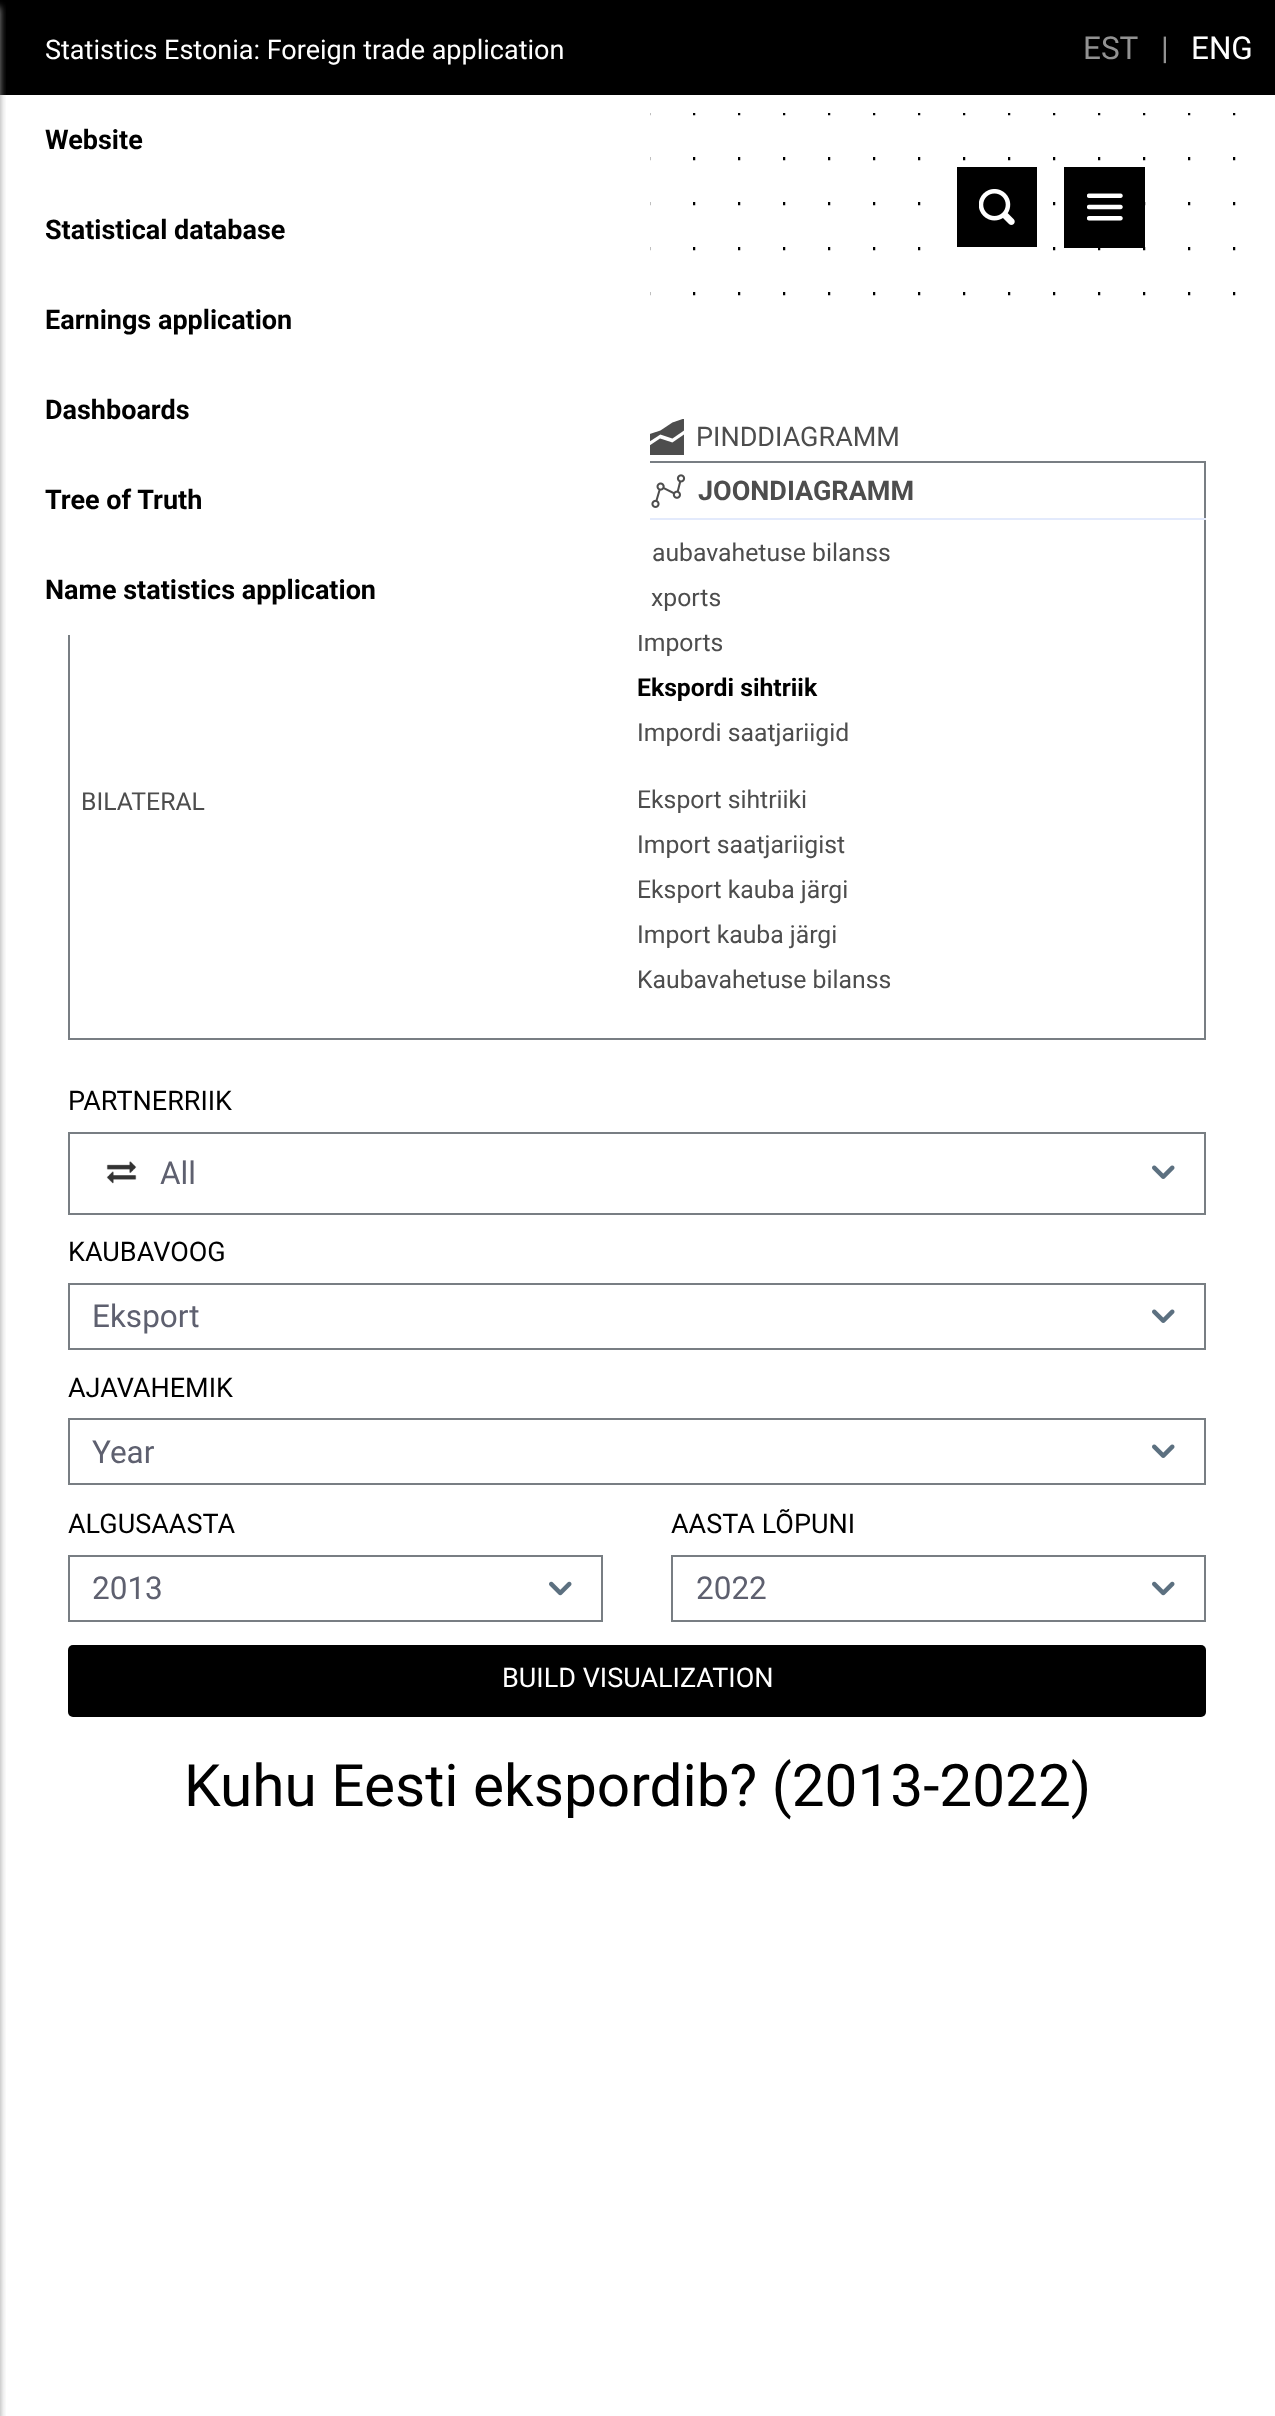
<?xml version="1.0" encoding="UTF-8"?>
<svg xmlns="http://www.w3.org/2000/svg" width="1275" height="2416">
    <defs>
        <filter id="blur1" x="-50%" y="-200%" width="200%" height="500%"><feGaussianBlur stdDeviation="3.5"/></filter>
    </defs>
    <rect width="100%" height="100%" fill="#FFFFFF"/>
    <image x="650" y="113" width="586" height="183" href="img_01.png"/>
    <rect x="0" y="0" width="1275" height="95" fill="#000000"/>
    <rect x="-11" y="7" width="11" height="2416" fill="#999999" fill-opacity="0.99" filter="url(#blur1)"/>
    <rect x="954.5" y="164.5" width="85" height="85" fill="#000000" stroke="#FFFFFF" stroke-width="5"/>
    <image x="979" y="189" width="36" height="36" href="img_02.png"/>
    <rect x="1064" y="167" width="81" height="81" fill="#000000"/>
    <image x="1087" y="193" width="36" height="28" href="img_03.png"/>
    <text x="45" y="59" font-family="Roboto" font-size="27" fill="#FFFFFF">Statistics Estonia: Foreign trade application</text>
    <text x="45" y="149" font-family="Roboto" font-size="27" font-weight="700" fill="#000000">Website</text>
    <text x="45" y="239" font-family="Roboto" font-size="27" font-weight="700" fill="#000000">Statistical database</text>
    <text x="45" y="329" font-family="Roboto" font-size="27" font-weight="700" fill="#000000">Earnings application</text>
    <text x="45" y="419" font-family="Roboto" font-size="27" font-weight="700" fill="#000000">Dashboards</text>
    <rect x="69" y="519" width="1136" height="520" fill="none" stroke="#787E83" stroke-width="2"/>
    <rect x="68" y="518" width="582" height="27" fill="#FFFFFF"/>
    <text x="45" y="509" font-family="Roboto" font-size="27" font-weight="700" fill="#000000">Tree of Truth</text>
    <text x="637" y="651" font-family="Roboto" font-size="24.75" fill="#4D4D4D">Imports</text>
    <rect x="68" y="545" width="574" height="90" fill="#FFFFFF"/>
    <text x="45" y="599" font-family="Roboto" font-size="27" font-weight="700" fill="#000000">Name statistics application</text>
    <text x="1083" y="59" font-family="Roboto" font-size="31.5" fill="#929292">EST</text>
    <text x="1161" y="59" font-family="Roboto" font-size="31.5" fill="#929292">|</text>
    <text x="1191" y="59" font-family="Roboto" font-size="31.5" fill="#FFFFFF">ENG</text>
    <image x="650" y="419" width="34" height="36" href="img_04.png"/>
    <text x="696" y="446" font-family="Roboto" font-size="27" fill="#4D4D4D">PINDDIAGRAMM</text>
    <rect x="650" y="461" width="556" height="2" fill="#787E83"/>
    <rect x="1204" y="461" width="2" height="59" fill="#787E83"/>
    <rect x="650" y="518" width="556" height="2" fill="#E3EAFC"/>
    <image x="651" y="474" width="35" height="34" href="img_05.png"/>
    <text x="698" y="500" font-family="Roboto" font-size="27" font-weight="700" fill="#4D4D4D">JOONDIAGRAMM</text>
    <text x="652" y="561" font-family="Roboto" font-size="24.75" fill="#4D4D4D">aubavahetuse bilanss</text>
    <text x="651" y="606" font-family="Roboto" font-size="24.75" fill="#4D4D4D">xports</text>
    <text x="637" y="696" font-family="Roboto" font-size="24.75" font-weight="700" fill="#000000">Ekspordi sihtriik</text>
    <text x="637" y="741" font-family="Roboto" font-size="24.75" fill="#4D4D4D">Impordi saatjariigid</text>
    <text x="81" y="810" font-family="Roboto" font-size="24.75" fill="#4D4D4D">BILATERAL</text>
    <text font-family="Roboto" font-size="24.75" fill="#4D4D4D">
        <tspan x="637" y="808">Eksport sihtriiki</tspan>
        <tspan x="637" y="853">Import saatjariigist</tspan>
        <tspan x="637" y="898">Eksport kauba järgi</tspan>
        <tspan x="637" y="943">Import kauba järgi</tspan>
        <tspan x="637" y="988">Kaubavahetuse bilanss</tspan>
    </text>
    <text x="68" y="1110" font-family="Roboto" font-size="27" fill="#000000">PARTNERRIIK</text>
    <rect x="69" y="1133" width="1136" height="81" fill="none" stroke="#787E83" stroke-width="2"/>
    <image x="106" y="1161" width="31" height="23" href="img_06.png"/>
    <text x="160" y="1184" font-family="Roboto" font-size="31.5" fill="#5E606F">All</text>
    <image x="1152" y="1165" width="23" height="14" href="img_07.png"/>
    <text x="68" y="1261" font-family="Roboto" font-size="27" fill="#000000">KAUBAVOOG</text>
    <rect x="69" y="1284" width="1136" height="65" fill="none" stroke="#787E83" stroke-width="2"/>
    <text x="92" y="1327" font-family="Roboto" font-size="31.5" fill="#5E606F">Eksport</text>
    <image x="1152" y="1309" width="23" height="14" href="img_07.png"/>
    <text x="68" y="1397" font-family="Roboto" font-size="27" fill="#000000">AJAVAHEMIK</text>
    <rect x="69" y="1419" width="1136" height="65" fill="none" stroke="#787E83" stroke-width="2"/>
    <text x="92" y="1463" font-family="Roboto" font-size="31.5" fill="#5E606F">Year</text>
    <image x="1152" y="1444" width="23" height="14" href="img_07.png"/>
    <text x="68" y="1533" font-family="Roboto" font-size="27" fill="#000000">ALGUSAASTA</text>
    <rect x="69" y="1556" width="533" height="65" fill="none" stroke="#787E83" stroke-width="2"/>
    <text x="92" y="1599" font-family="Roboto" font-size="31.5" fill="#5E606F">2013</text>
    <image x="549" y="1581" width="23" height="15" href="img_08.png"/>
    <text x="671" y="1533" font-family="Roboto" font-size="27" fill="#000000">AASTA LÕPUNI</text>
    <rect x="672" y="1556" width="533" height="65" fill="none" stroke="#787E83" stroke-width="2"/>
    <text x="696" y="1599" font-family="Roboto" font-size="31.5" fill="#5E606F">2022</text>
    <image x="1152" y="1581" width="23" height="15" href="img_08.png"/>
    <rect x="68" y="1645" width="1138" height="72" rx="5" fill="#000000"/>
    <text x="502" y="1687" font-family="Roboto" font-size="27" fill="#FFFFFF">BUILD VISUALIZATION</text>
    <text x="184" y="1806" font-family="Roboto" font-size="58.5" fill="#000000">Kuhu Eesti ekspordib? (2013-2022)</text>
</svg>
